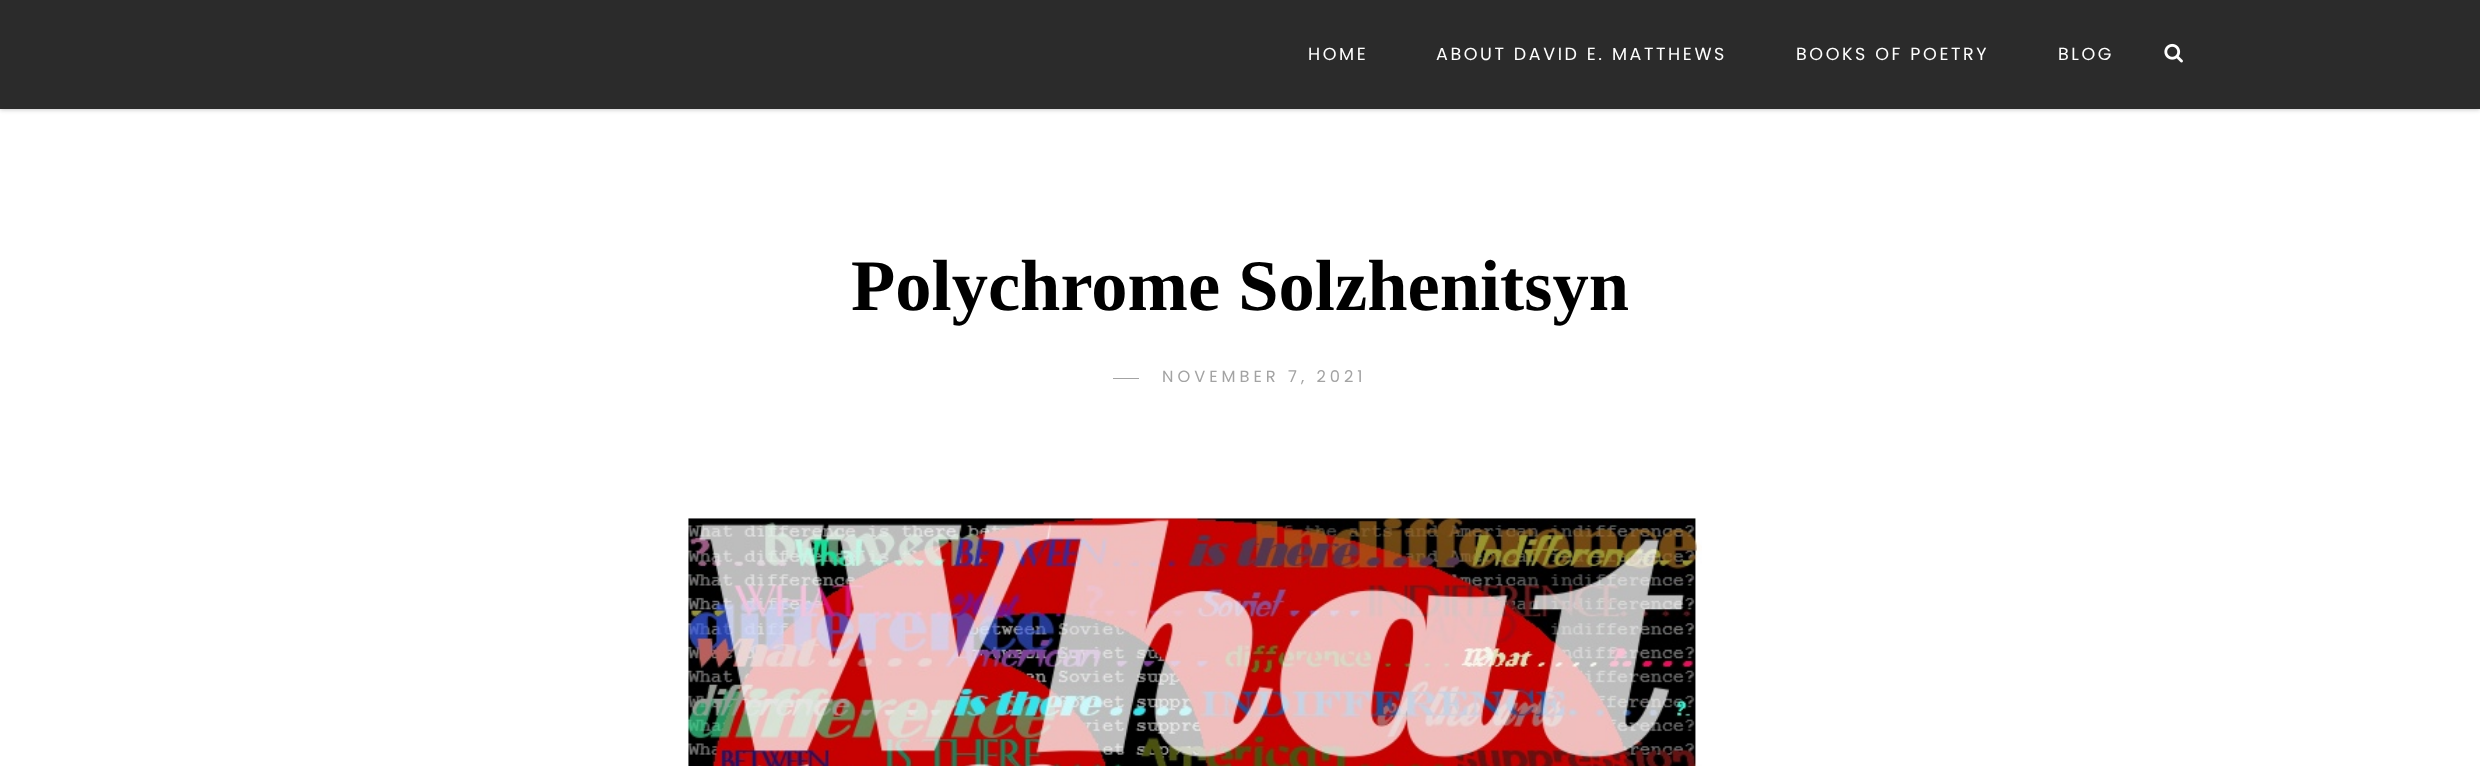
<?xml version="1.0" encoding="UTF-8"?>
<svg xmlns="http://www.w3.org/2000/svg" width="2480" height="766">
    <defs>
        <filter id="blur1" x="-50%" y="-200%" width="200%" height="500%"><feGaussianBlur stdDeviation="2"/></filter>
    </defs>
    <rect width="100%" height="100%" fill="#FFFFFF"/>
    <rect x="0" y="1" width="2480" height="109" fill="#000000" fill-opacity="0.2" filter="url(#blur1)"/>
    <rect x="0" y="0" width="2480" height="109" fill="#2B2B2B"/>
    <text x="1308" y="60" font-family="Poppins" font-size="17.5" letter-spacing="2.6" fill="#FFFFFF">HOME</text>
    <text x="1436" y="60" font-family="Poppins" font-size="17.5" letter-spacing="2.6" fill="#FFFFFF">ABOUT DAVID E. MATTHEWS</text>
    <text x="1796" y="60" font-family="Poppins" font-size="17.5" letter-spacing="2.6" fill="#FFFFFF">BOOKS OF POETRY</text>
    <text x="2058" y="60" font-family="Poppins" font-size="17.5" letter-spacing="2.6" fill="#FFFFFF">BLOG</text>
    <image x="2164" y="43" width="19" height="20" href="img_01.png"/>
    <text x="851" y="310" font-family="Liberation Serif" font-size="72.5" font-weight="700" fill="#000000">Polychrome Solzhenitsyn</text>
    <rect x="1113" y="378" width="26" height="1" fill="#A3A3A3"/>
    <text x="1162" y="382" font-family="Poppins" font-size="16.25" letter-spacing="4" fill="#A3A3A3">NOVEMBER 7, 2021</text>
    <image x="687" y="517" width="1015" height="249" href="img_02.png"/>
</svg>
